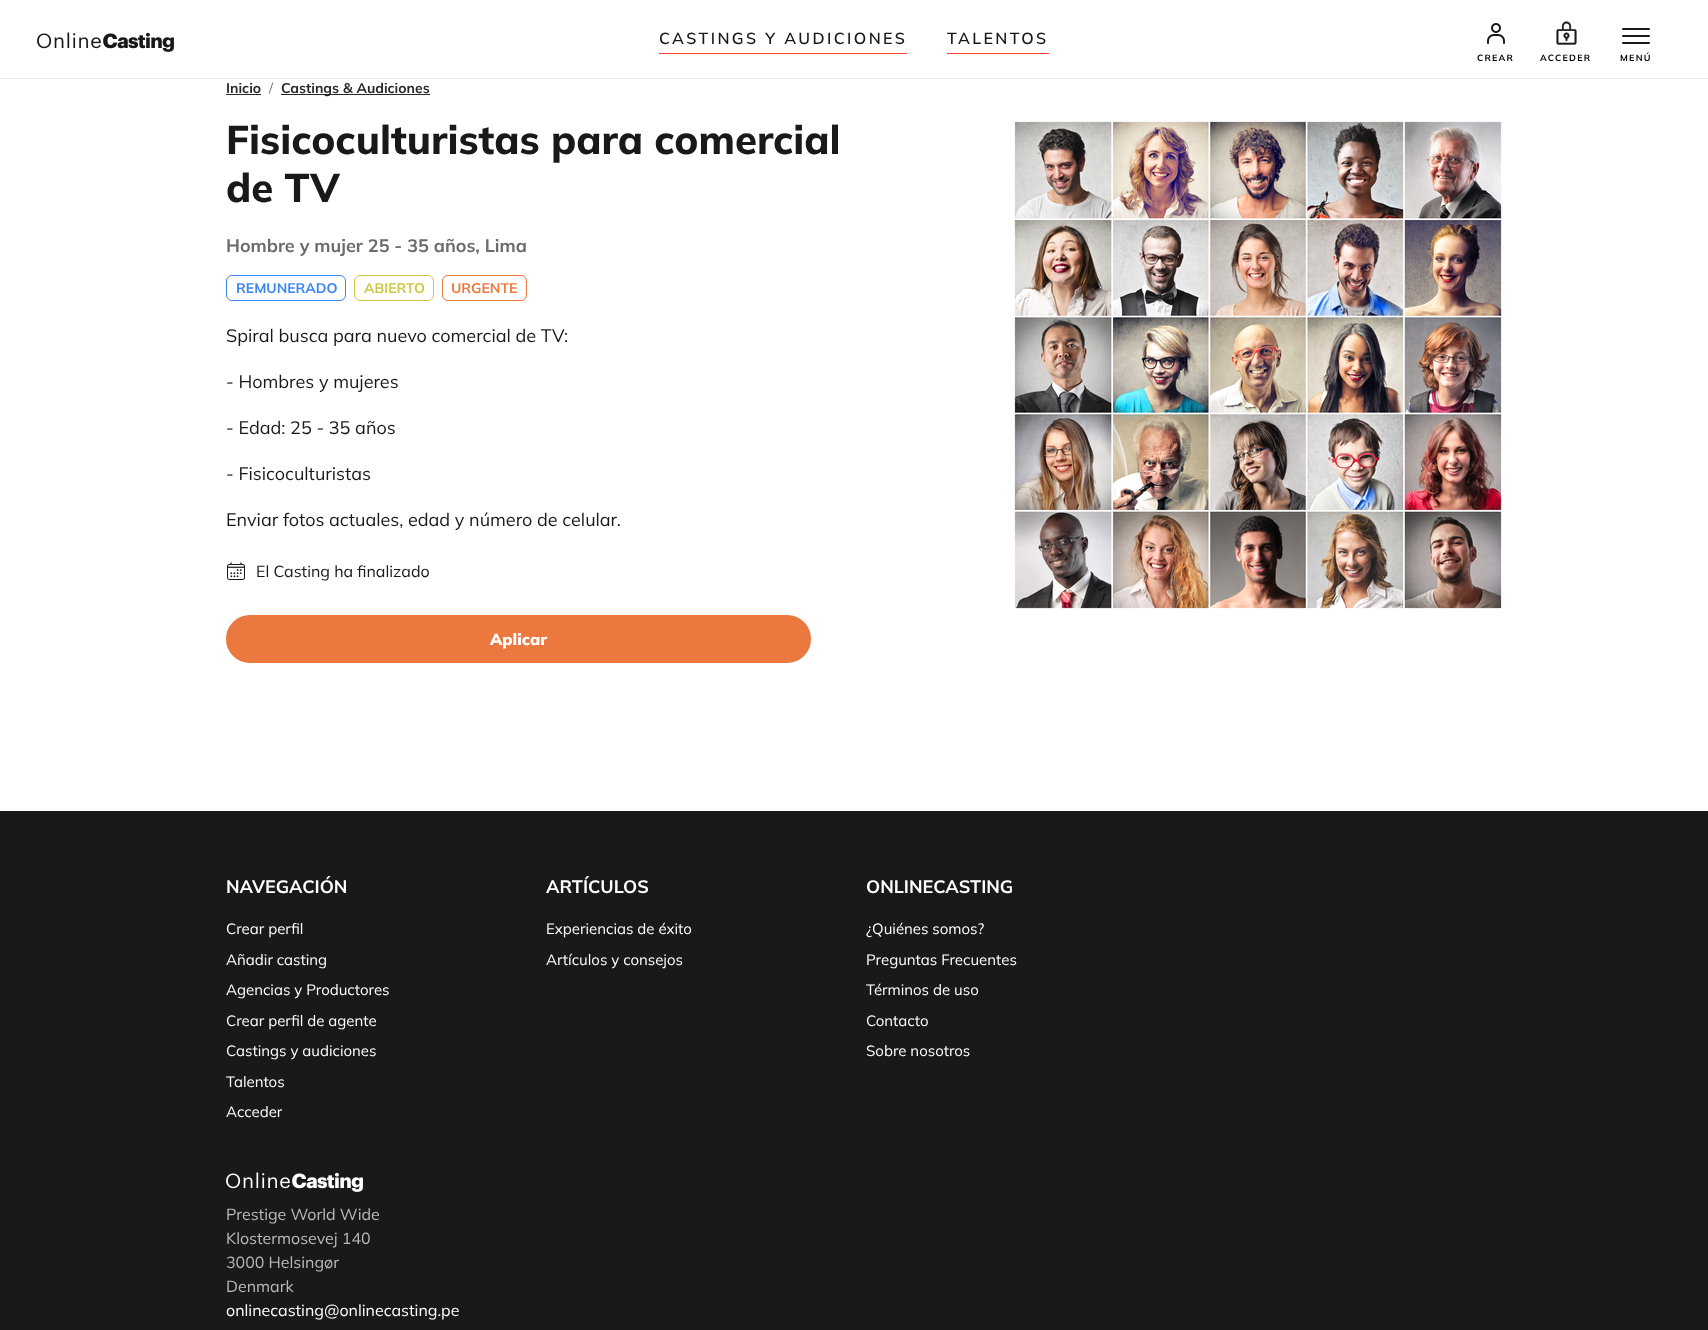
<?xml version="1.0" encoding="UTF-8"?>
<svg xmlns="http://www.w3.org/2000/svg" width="1708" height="1330">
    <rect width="100%" height="100%" fill="#FFFFFF"/>
    <rect x="0" y="78" width="1708" height="1" fill="#E6E6E6"/>
    <image x="37" y="32" width="137" height="20" href="img_01.png"/>
    <text x="659" y="44" font-family="Mulish" font-size="16" font-weight="600" letter-spacing="2.4" fill="#19191C">CASTINGS Y AUDICIONES</text>
    <rect x="659" y="53" width="248" height="1" fill="#FF422E"/>
    <text x="947" y="44" font-family="Mulish" font-size="16" font-weight="600" letter-spacing="2.4" fill="#19191C">TALENTOS</text>
    <rect x="947" y="53" width="102" height="1" fill="#FF422E"/>
    <image x="1487" y="23" width="18" height="21" href="img_02.png"/>
    <text x="1477" y="61" font-family="Mulish" font-size="9" font-weight="700" letter-spacing="1.25" fill="#000000">CREAR</text>
    <image x="1556" y="21" width="21" height="24" href="img_03.png"/>
    <text x="1540" y="61" font-family="Mulish" font-size="9" font-weight="700" letter-spacing="1.25" fill="#000000">ACCEDER</text>
    <rect x="1622" y="28" width="28" height="2" rx="1" fill="#19191C"/>
    <rect x="1622" y="35" width="28" height="2" rx="1" fill="#19191C"/>
    <rect x="1622" y="42" width="28" height="2" rx="1" fill="#19191C"/>
    <text x="1620" y="61" font-family="Mulish" font-size="9" font-weight="700" letter-spacing="1.25" fill="#000000">MENÚ</text>
    <text x="226" y="93" font-family="Mulish" font-size="14" font-weight="700" fill="#272727">Inicio</text>
    <rect x="226" y="94" width="35" height="1" fill="#272727"/>
    <text x="269" y="93" font-family="Mulish" font-size="14" fill="#6C757D">/</text>
    <rect x="281" y="94" width="149" height="1" fill="#272727"/>
    <text x="281" y="93" font-family="Mulish" font-size="14" font-weight="700" fill="#272727">Castings &amp; Audiciones</text>
    <text font-family="Mulish" font-size="40" font-weight="800" fill="#19191C">
        <tspan x="226" y="154">Fisicoculturistas para comercial</tspan>
        <tspan x="226" y="202">de TV</tspan>
    </text>
    <text x="226" y="252" font-family="Mulish" font-size="18" font-weight="700" fill="#6B6B6B">Hombre y mujer 25 - 35 años, Lima</text>
    <rect x="226.5" y="275.5" width="119" height="25" rx="5.5" fill="none" stroke="#3A84F4"/>
    <text x="236" y="293" font-family="Mulish" font-size="14" font-weight="700" fill="#3A84F4">REMUNERADO</text>
    <rect x="354.5" y="275.5" width="79" height="25" rx="5.5" fill="none" stroke="#CDC744"/>
    <text x="364" y="293" font-family="Mulish" font-size="14" font-weight="700" fill="#CDC744">ABIERTO</text>
    <rect x="442.5" y="275.5" width="84" height="25" rx="5.5" fill="none" stroke="#EB783E"/>
    <text x="451" y="293" font-family="Mulish" font-size="14" font-weight="700" fill="#EB783E">URGENTE</text>
    <image x="1014" y="121" width="488" height="488" href="img_04.png"/>
    <text x="226" y="342" font-family="Mulish" font-size="18" fill="#19191C">Spiral busca para nuevo comercial de TV:</text>
    <text x="226" y="388" font-family="Mulish" font-size="18" fill="#19191C">- Hombres y mujeres</text>
    <text x="226" y="434" font-family="Mulish" font-size="18" fill="#19191C">- Edad: 25 - 35 años</text>
    <text x="226" y="480" font-family="Mulish" font-size="18" fill="#19191C">- Fisicoculturistas</text>
    <text x="226" y="526" font-family="Mulish" font-size="18" fill="#19191C">Enviar fotos actuales, edad y número de celular.</text>
    <image x="227" y="562" width="18" height="18" href="img_05.png"/>
    <text x="256" y="577" font-family="Mulish" font-size="16" fill="#19191C">El Casting ha finalizado</text>
    <rect x="227" y="616" width="583" height="46" rx="23" fill="#EB783E" stroke="#EB783E" stroke-width="2"/>
    <text x="490" y="645" font-family="Mulish" font-size="16" font-weight="900" fill="#FFFFFF">Aplicar</text>
    <rect x="0" y="811" width="1708" height="519" fill="#19191C"/>
    <text x="226" y="893" font-family="Mulish" font-size="18" font-weight="700" fill="#FFFFFF">NAVEGACIÓN</text>
    <text x="226" y="934" font-family="Mulish" font-size="15" fill="#FFFFFF">Crear perfil</text>
    <text x="226" y="965" font-family="Mulish" font-size="15" fill="#FFFFFF">Añadir casting</text>
    <text x="226" y="995" font-family="Mulish" font-size="15" fill="#FFFFFF">Agencias y Productores</text>
    <text x="226" y="1026" font-family="Mulish" font-size="15" fill="#FFFFFF">Crear perfil de agente</text>
    <text x="226" y="1056" font-family="Mulish" font-size="15" fill="#FFFFFF">Castings y audiciones</text>
    <text x="226" y="1087" font-family="Mulish" font-size="15" fill="#FFFFFF">Talentos</text>
    <text x="226" y="1117" font-family="Mulish" font-size="15" fill="#FFFFFF">Acceder</text>
    <text x="546" y="893" font-family="Mulish" font-size="18" font-weight="700" fill="#FFFFFF">ARTÍCULOS</text>
    <text x="546" y="934" font-family="Mulish" font-size="15" fill="#FFFFFF">Experiencias de éxito</text>
    <text x="546" y="965" font-family="Mulish" font-size="15" fill="#FFFFFF">Artículos y consejos</text>
    <text x="866" y="893" font-family="Mulish" font-size="18" font-weight="700" fill="#FFFFFF">ONLINECASTING</text>
    <text x="866" y="934" font-family="Mulish" font-size="15" fill="#FFFFFF">¿Quiénes somos?</text>
    <text x="866" y="965" font-family="Mulish" font-size="15" fill="#FFFFFF">Preguntas Frecuentes</text>
    <text x="866" y="995" font-family="Mulish" font-size="15" fill="#FFFFFF">Términos de uso</text>
    <text x="866" y="1026" font-family="Mulish" font-size="15" fill="#FFFFFF">Contacto</text>
    <text x="866" y="1056" font-family="Mulish" font-size="15" fill="#FFFFFF">Sobre nosotros</text>
    <image x="226" y="1172" width="137" height="20" href="img_06.png"/>
    <text font-family="Mulish" font-size="16" fill="#BABABB">
        <tspan x="226" y="1220">Prestige World Wide</tspan>
        <tspan x="226" y="1244">Klostermosevej 140</tspan>
        <tspan x="226" y="1268">3000 Helsingør</tspan>
        <tspan x="226" y="1292">Denmark</tspan>
    </text>
    <text x="226" y="1316" font-family="Mulish" font-size="16" fill="#FFFFFF">onlinecasting@onlinecasting.pe</text>
</svg>
